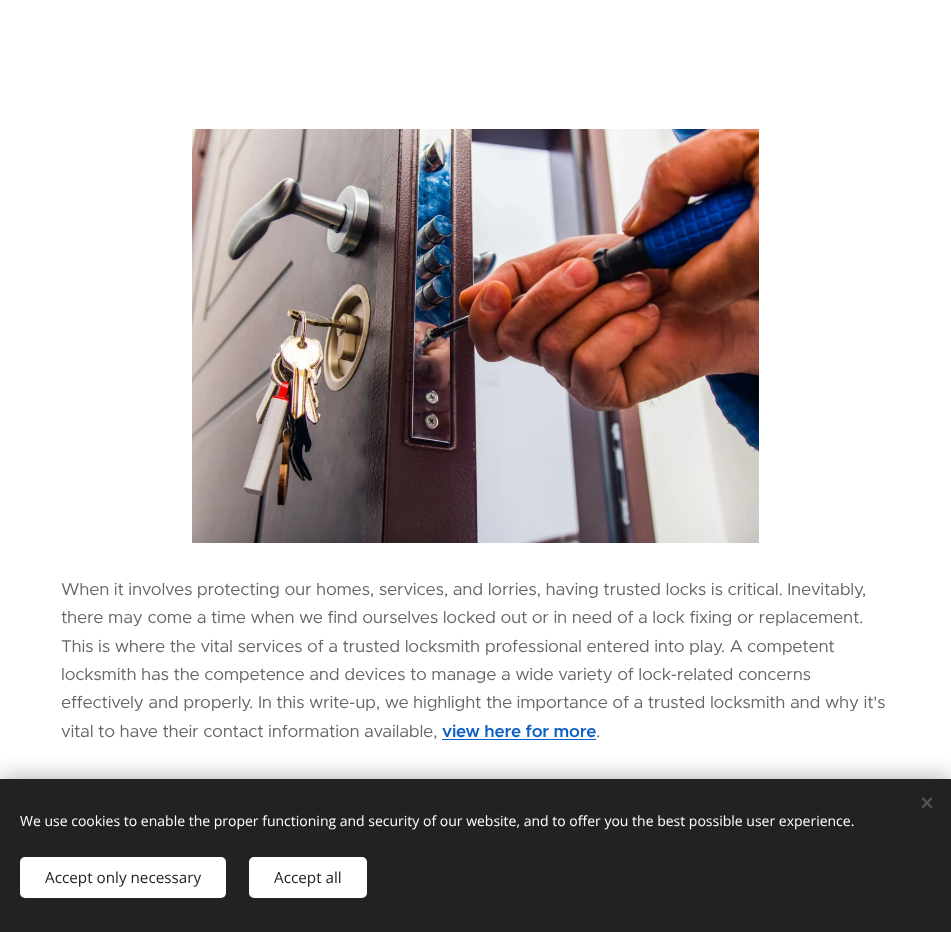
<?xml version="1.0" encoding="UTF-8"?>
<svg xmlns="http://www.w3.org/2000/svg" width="951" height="932">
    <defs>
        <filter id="blur1" x="-50%" y="-200%" width="200%" height="500%"><feGaussianBlur stdDeviation="12.5"/></filter>
    </defs>
    <rect width="100%" height="100%" fill="#FFFFFF"/>
    <image x="192" y="129" width="567" height="414" href="img_01.png"/>
    <text font-family="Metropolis" font-size="17.2" letter-spacing="-0.26" fill="#666666">
        <tspan x="61" y="595">When it involves protecting our homes, services, and lorries, having trusted locks is critical. Inevitably,</tspan>
        <tspan x="61" y="623">there may come a time when we find ourselves locked out or in need of a lock fixing or replacement.</tspan>
        <tspan x="61" y="652">This is where the vital services of a trusted locksmith professional entered into play. A competent</tspan>
        <tspan x="61" y="680">locksmith has the competence and devices to manage a wide variety of lock-related concerns</tspan>
        <tspan x="61" y="708">effectively and properly. In this write-up, we highlight the importance of a trusted locksmith and why it's</tspan>
        <tspan x="61" y="737">vital to have their contact information available,</tspan>
    </text>
    <text x="442" y="737" font-family="Metropolis" font-size="17.2" font-weight="600" letter-spacing="-0.26" fill="#0E60C6">view here for more</text>
    <rect x="442" y="739" width="154" height="1" fill="#0E60C6"/>
    <text x="596" y="737" font-family="Metropolis" font-size="17.2" letter-spacing="-0.26" fill="#666666">.</text>
    <rect x="0" y="779" width="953" height="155" fill="#000000" fill-opacity="0.33" filter="url(#blur1)"/>
    <rect x="0" y="779" width="951" height="153" fill="#222222"/>
    <path d="M 921.5 807 L 931 797 L 932.5 798.5 L 923 808.5 Z" fill="#555555"/>
    <path d="M 923 797 L 932.5 807 L 931 808.5 L 921.5 798.5 Z" fill="#555555"/>
    <text x="20" y="826" font-family="Open Sans" font-size="14" fill="#FFFFFF">We use cookies to enable the proper functioning and security of our website, and to offer you the best possible user experience.</text>
    <rect x="20" y="857" width="206" height="41" rx="5" fill="#FFFFFF"/>
    <text x="45" y="883" font-family="Open Sans" font-size="15.25" fill="#222222">Accept only necessary</text>
    <rect x="249" y="857" width="118" height="41" rx="5" fill="#FFFFFF"/>
    <text x="274" y="883" font-family="Open Sans" font-size="15.25" fill="#222222">Accept all</text>
</svg>
